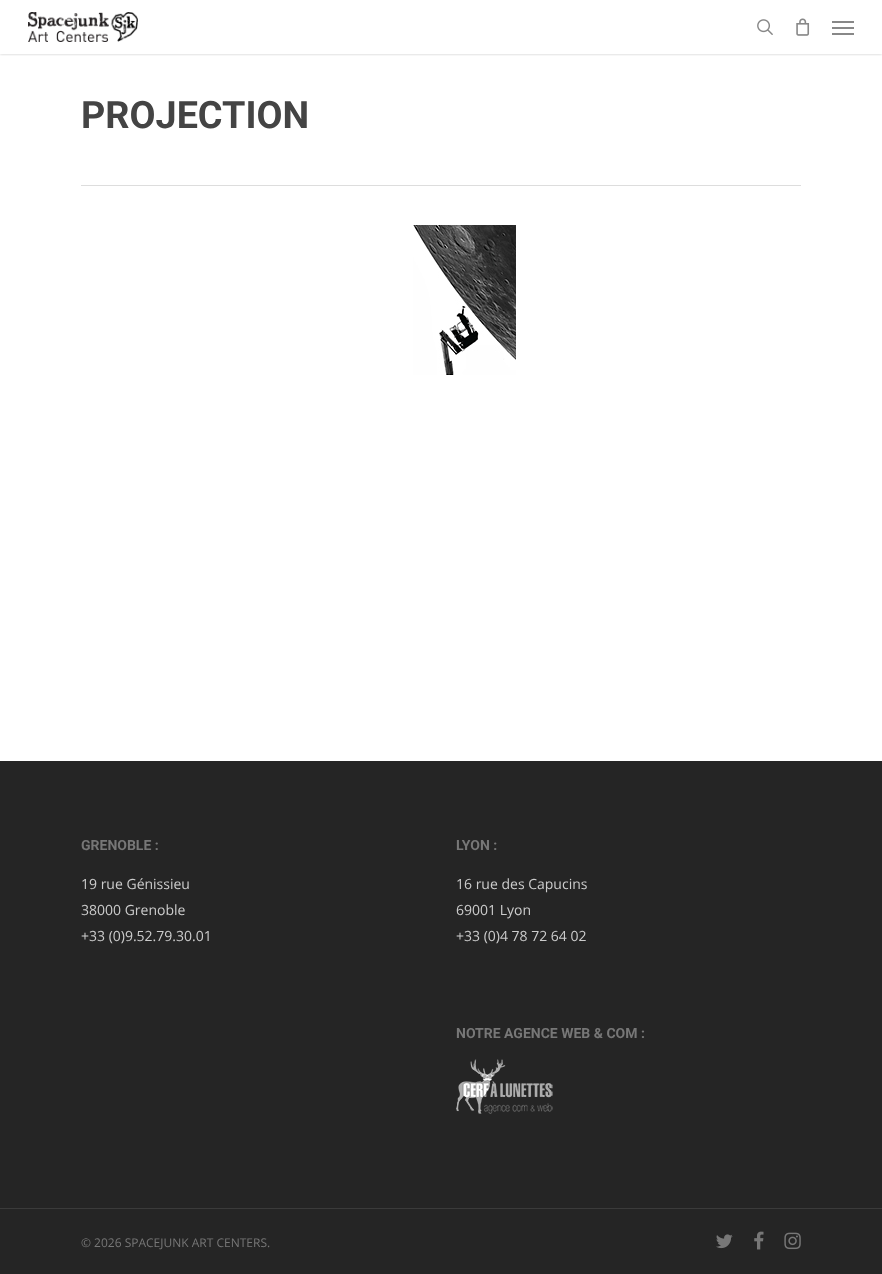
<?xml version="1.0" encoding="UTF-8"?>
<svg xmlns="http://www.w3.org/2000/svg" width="882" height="1274">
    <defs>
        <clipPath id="clip1"><rect x="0" y="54" width="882" height="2"/></clipPath>
        <filter id="blur1" x="-50%" y="-200%" width="200%" height="500%"><feGaussianBlur stdDeviation="1.5"/></filter>
    </defs>
    <rect width="100%" height="100%" fill="#FFFFFF"/>
    <g clip-path="url(#clip1)">
        <rect x="0" y="0" width="882" height="54" fill="#000000" fill-opacity="0.22" filter="url(#blur1)"/>
    </g>
    <image x="28" y="12" width="110" height="30" href="img_01.png"/>
    <image x="757" y="19" width="16" height="16" href="img_02.png"/>
    <image x="796" y="18" width="14" height="18" href="img_03.png"/>
    <rect x="832" y="21" width="22" height="2" fill="#888888"/>
    <rect x="832" y="33" width="22" height="2" fill="#888888"/>
    <rect x="832" y="27" width="22" height="2" fill="#888888"/>
    <rect x="81" y="185" width="720" height="1" fill="#DDDDDD"/>
    <text x="81" y="128" font-family="Roboto" font-size="37.75" font-weight="700" fill="#444444">PROJECTION</text>
    <image x="413" y="225" width="103" height="150" href="img_04.png"/>
    <rect x="0" y="761" width="882" height="513" fill="#252525"/>
    <text x="81" y="850" font-family="Roboto" font-size="14" font-weight="700" fill="#777777">GRENOBLE :</text>
    <text font-family="Open Sans" font-size="14" fill="#CCCCCC">
        <tspan x="81" y="889">19 rue Génissieu</tspan>
        <tspan x="81" y="915">38000 Grenoble</tspan>
        <tspan x="81" y="941">+33 (0)9.52.79.30.01</tspan>
    </text>
    <text x="456" y="850" font-family="Roboto" font-size="14" font-weight="700" fill="#777777">LYON :</text>
    <text font-family="Open Sans" font-size="14" fill="#CCCCCC">
        <tspan x="456" y="889">16 rue des Capucins</tspan>
        <tspan x="456" y="915">69001 Lyon</tspan>
        <tspan x="456" y="941">+33 (0)4 78 72 64 02</tspan>
    </text>
    <text x="456" y="1038" font-family="Roboto" font-size="14" font-weight="700" fill="#777777">NOTRE AGENCE WEB &amp; COM :</text>
    <image x="456" y="1059" width="97" height="55" href="img_05.png"/>
    <rect x="0" y="1208" width="882" height="1" fill="#3B3B3B"/>
    <text x="81" y="1247" font-family="Open Sans" font-size="12" fill="#777777">© 2026 SPACEJUNK ART CENTERS.</text>
    <image x="716" y="1234" width="17" height="15" href="img_06.png"/>
    <image x="754" y="1231" width="10" height="19" href="img_07.png"/>
    <image x="784" y="1232" width="17" height="18" href="img_08.png"/>
</svg>
